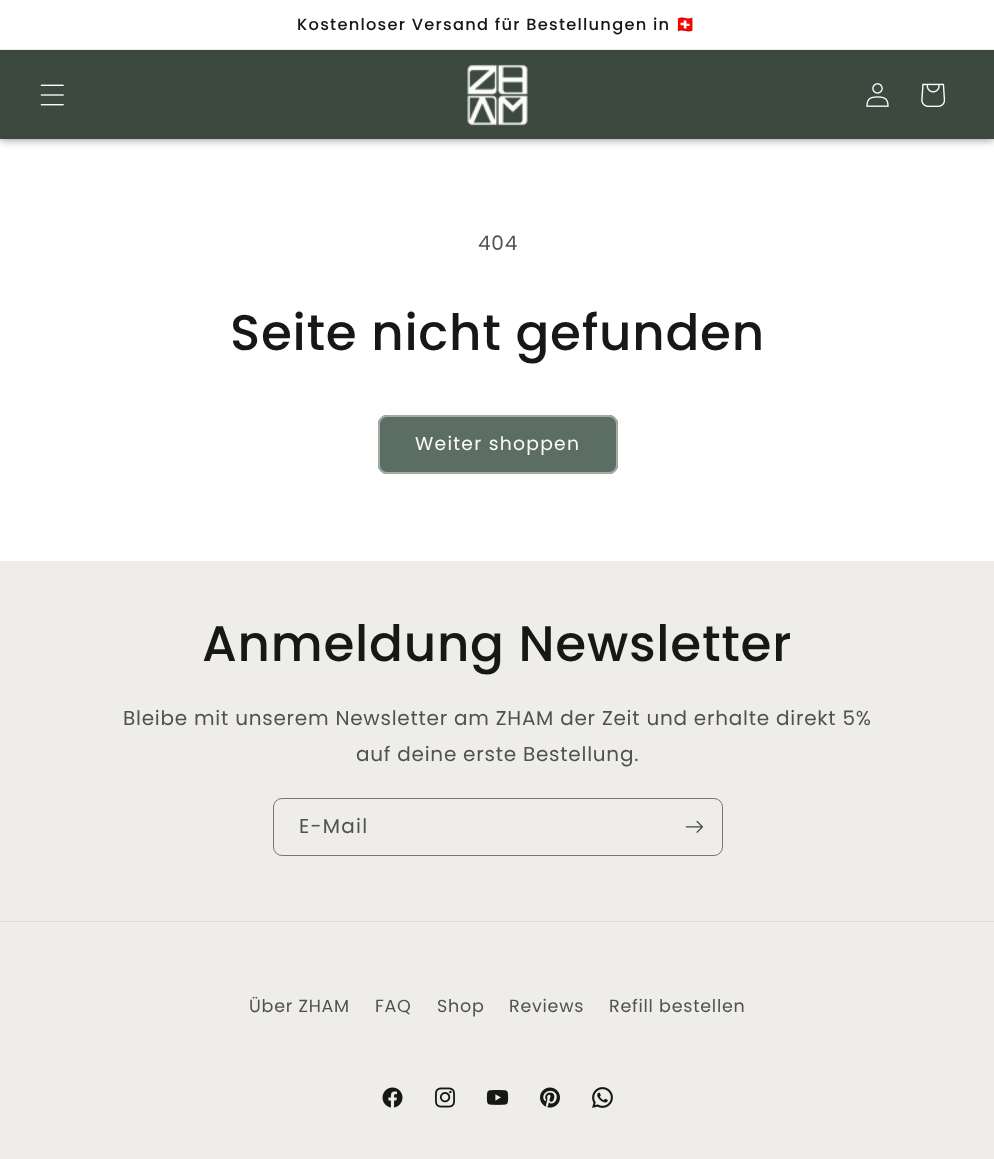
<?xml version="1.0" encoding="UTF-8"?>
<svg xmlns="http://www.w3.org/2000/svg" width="994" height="1159">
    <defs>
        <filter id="blur1" x="-50%" y="-200%" width="200%" height="500%"><feGaussianBlur stdDeviation="5"/></filter>
    </defs>
    <rect width="100%" height="100%" fill="#FFFFFF"/>
    <rect x="0" y="50" width="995" height="89" fill="#000000" fill-opacity="0.5" filter="url(#blur1)"/>
    <rect x="0" y="40" width="994" height="9" fill="#FFFFFF"/>
    <rect x="0" y="49" width="994" height="1" fill="#ECEDEC"/>
    <text x="297" y="30" font-family="Poppins" font-size="16.25" font-weight="500" letter-spacing="1.25" fill="#161816">Kostenloser Versand für Bestellungen in</text>
    <text x="675" y="30" font-family="Noto Color Emoji" font-size="16.25" letter-spacing="1.25" fill="#161816">🇨🇭</text>
    <rect x="0" y="50" width="994" height="89" fill="#3C493F"/>
    <image x="40" y="84" width="24" height="22" href="img_01.png"/>
    <image x="467" y="64" width="61" height="62" href="img_02.png"/>
    <image x="866" y="83" width="23" height="24" href="img_03.png"/>
    <image x="921" y="83" width="25" height="24" href="img_04.png"/>
    <text x="478" y="250" font-family="Poppins" font-size="20" letter-spacing="0.75" fill="#505250">404</text>
    <text x="230" y="350" font-family="Poppins" font-size="50" font-weight="500" letter-spacing="0.75" fill="#161816">Seite nicht gefunden</text>
    <rect x="378" y="415" width="240" height="59" rx="9" fill="#5C6E63"/>
    <rect x="378.5" y="415.5" width="239" height="58" rx="8.5" fill="none" stroke="#5C6E63"/>
    <rect x="379" y="416" width="238" height="57" rx="8" fill="none" stroke="#FDFBF7" stroke-opacity="0.45" stroke-width="2"/>
    <text x="415" y="450" font-family="Poppins" font-size="18.75" letter-spacing="1.25" fill="#FDFBF7">Weiter shoppen</text>
    <rect x="0" y="561" width="994" height="360" fill="#EEEDE9"/>
    <text x="202" y="661" font-family="Poppins" font-size="50" font-weight="500" letter-spacing="0.75" fill="#161816">Anmeldung Newsletter</text>
    <text x="123" y="725" font-family="Poppins" font-size="20" letter-spacing="0.75" fill="#505250">Bleibe mit unserem Newsletter am ZHAM der Zeit und erhalte direkt 5%</text>
    <text x="356" y="761" font-family="Poppins" font-size="20" letter-spacing="0.75" fill="#505250">auf deine erste Bestellung.</text>
    <rect x="273.5" y="798.5" width="449" height="57" rx="8.5" fill="none" stroke="#777875"/>
    <text x="299" y="833" font-family="Poppins" font-size="20" letter-spacing="1.25" fill="#505250">E-Mail</text>
    <image x="685" y="820" width="18" height="13" href="img_05.png"/>
    <rect x="0" y="922" width="994" height="237" fill="#EEEDE9"/>
    <rect x="0" y="921" width="994" height="1" fill="#DDDCD8"/>
    <text x="249" y="1012" font-family="Poppins" font-size="17.5" letter-spacing="0.75" fill="#505250">Über ZHAM</text>
    <text x="375" y="1012" font-family="Poppins" font-size="17.5" letter-spacing="0.75" fill="#505250">FAQ</text>
    <text x="437" y="1012" font-family="Poppins" font-size="17.5" letter-spacing="0.75" fill="#505250">Shop</text>
    <text x="509" y="1012" font-family="Poppins" font-size="17.5" letter-spacing="0.75" fill="#505250">Reviews</text>
    <text x="609" y="1012" font-family="Poppins" font-size="17.5" letter-spacing="0.75" fill="#505250">Refill bestellen</text>
    <image x="382" y="1087" width="21" height="21" href="img_06.png"/>
    <image x="435" y="1087" width="20" height="21" href="img_07.png"/>
    <image x="486" y="1090" width="23" height="15" href="img_08.png"/>
    <image x="540" y="1087" width="20" height="21" href="img_09.png"/>
    <image x="592" y="1087" width="21" height="21" href="img_10.png"/>
</svg>
